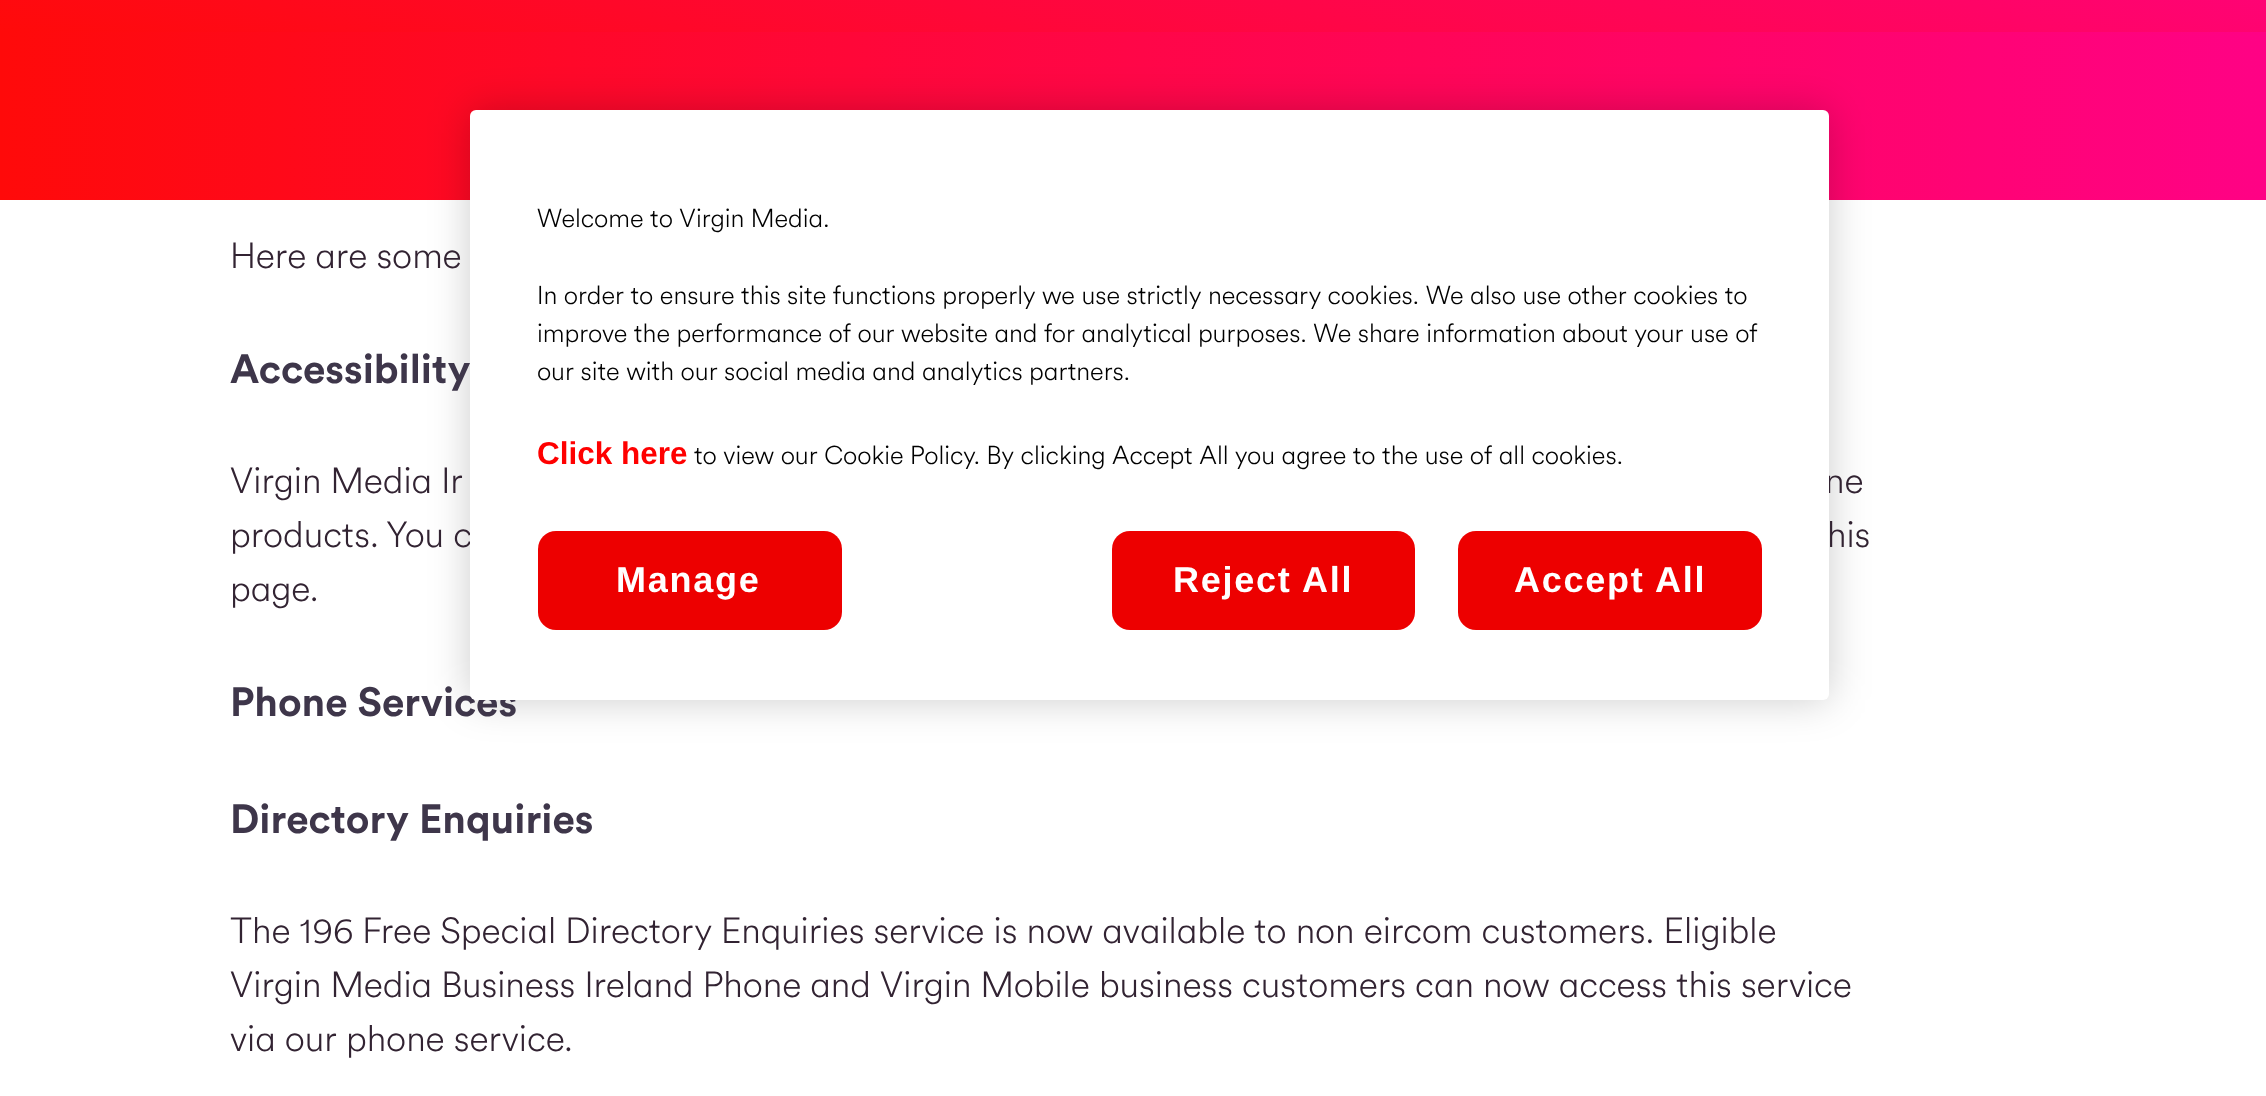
<?xml version="1.0" encoding="UTF-8"?>
<svg xmlns="http://www.w3.org/2000/svg" width="2266" height="1096">
    <defs>
        <linearGradient id="g1" gradientUnits="userSpaceOnUse" x1="0" y1="32" x2="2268" y2="31"><stop offset="0" stop-color="#FF0A0A"/><stop offset="1" stop-color="#FF0285"/></linearGradient>
        <filter id="blur1" x="-50%" y="-200%" width="200%" height="500%"><feGaussianBlur stdDeviation="20"/></filter>
        <linearGradient id="g2" gradientUnits="userSpaceOnUse" x1="974" y1="386" x2="1294" y2="-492"><stop offset="0" stop-color="#FF0A0A"/><stop offset="1" stop-color="#FF0285"/></linearGradient>
    </defs>
    <rect width="100%" height="100%" fill="#FFFFFF"/>
    <rect x="0" y="32" width="2266" height="168" fill="url(#g1)"/>
    <rect x="470" y="110" width="1359" height="590" rx="6" fill="#000000" fill-opacity="0.2" filter="url(#blur1)"/>
    <text x="1825" y="493" font-family="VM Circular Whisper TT" font-size="36" font-weight="300" fill="#322332">ne</text>
    <text x="230" y="547" font-family="VM Circular Whisper TT" font-size="36" font-weight="300" fill="#322332">products. You c</text>
    <text x="230" y="716" font-family="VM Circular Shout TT" font-size="40.5" font-weight="700" fill="#3E364A">Phone Services</text>
    <rect x="470" y="110" width="1359" height="590" rx="6" fill="#FFFFFF"/>
    <text x="537" y="227" font-family="VM Circular Whisper TT" font-size="25.6" font-weight="300" fill="#000000">Welcome to Virgin Media.</text>
    <text font-family="VM Circular Whisper TT" font-size="25.6" font-weight="300" fill="#000000">
        <tspan x="537" y="304">In order to ensure this site functions properly we use strictly necessary cookies. We also use other cookies to</tspan>
        <tspan x="537" y="342">improve the performance of our website and for analytical purposes. We share information about your use of</tspan>
        <tspan x="537" y="380">our site with our social media and analytics partners.</tspan>
    </text>
    <text x="537" y="464" font-family="Liberation Sans" font-size="31.5" font-weight="700" fill="#FF0000">Click here</text>
    <text x="694" y="464" font-family="VM Circular Whisper TT" font-size="25.6" font-weight="300" fill="#000000">to view our Cookie Policy. By clicking Accept All you agree to the use of all cookies.</text>
    <rect x="538" y="531" width="304" height="99" rx="18" fill="#ED0000"/>
    <text x="616" y="592" font-family="Liberation Sans" font-size="36" font-weight="700" letter-spacing="1.75" fill="#FFFFFF">Manage</text>
    <rect x="1112" y="531" width="303" height="99" rx="18" fill="#ED0000"/>
    <text x="1173" y="592" font-family="Liberation Sans" font-size="36" font-weight="700" letter-spacing="1.75" fill="#FFFFFF">Reject All</text>
    <rect x="1458" y="531" width="304" height="99" rx="18" fill="#ED0000"/>
    <text x="1514" y="592" font-family="Liberation Sans" font-size="36" font-weight="700" letter-spacing="1.75" fill="#FFFFFF">Accept All</text>
    <rect x="0" y="0" width="2266" height="32" fill="url(#g2)"/>
    <text x="230" y="268" font-family="VM Circular Whisper TT" font-size="36" font-weight="300" fill="#322332">Here are some</text>
    <text x="230" y="383" font-family="VM Circular Shout TT" font-size="40.5" font-weight="700" fill="#3E364A">Accessibility</text>
    <text x="230" y="493" font-family="VM Circular Whisper TT" font-size="36" font-weight="300" fill="#322332">Virgin Media Ir</text>
    <text x="1827" y="547" font-family="VM Circular Whisper TT" font-size="36" font-weight="300" fill="#322332">his</text>
    <text x="230" y="601" font-family="VM Circular Whisper TT" font-size="36" font-weight="300" fill="#322332">page.</text>
    <text x="230" y="833" font-family="VM Circular Shout TT" font-size="40.5" font-weight="700" fill="#3E364A">Directory Enquiries</text>
    <text font-family="VM Circular Whisper TT" font-size="36" font-weight="300" fill="#322332">
        <tspan x="230" y="943">The 196 Free Special Directory Enquiries service is now available to non eircom customers. Eligible</tspan>
        <tspan x="230" y="997">Virgin Media Business Ireland Phone and Virgin Mobile business customers can now access this service</tspan>
        <tspan x="230" y="1051">via our phone service.</tspan>
    </text>
</svg>
